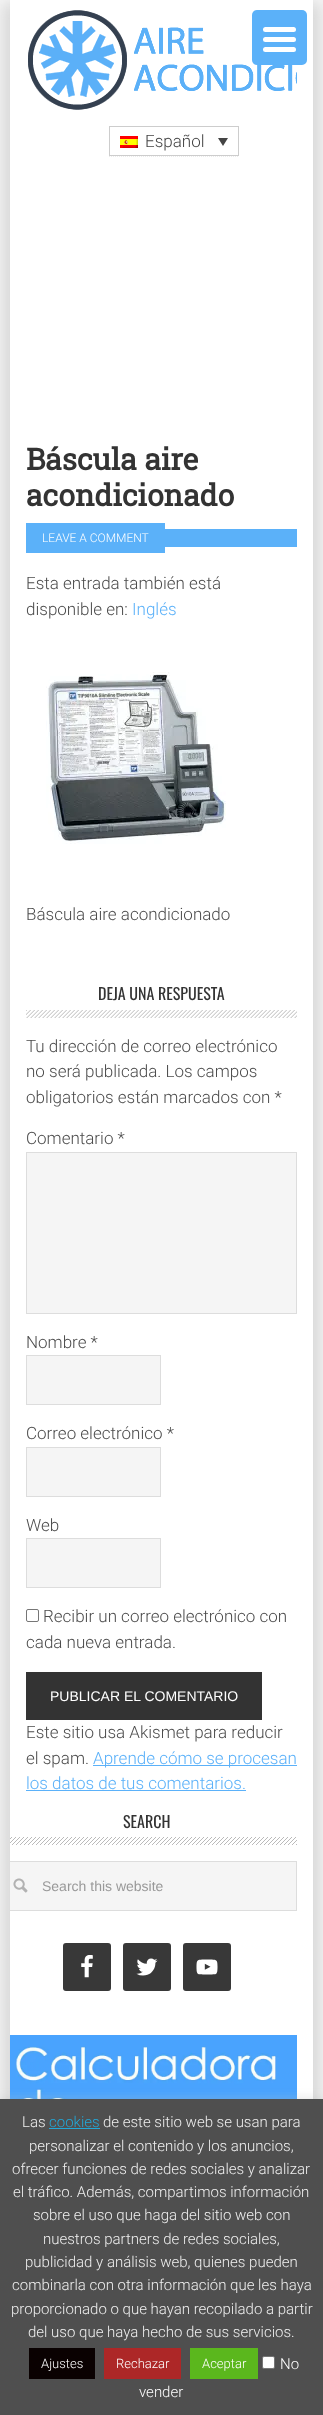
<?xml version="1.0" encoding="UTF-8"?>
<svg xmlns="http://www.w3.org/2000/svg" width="323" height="2415">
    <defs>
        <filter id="blur1" x="-50%" y="-200%" width="200%" height="500%"><feGaussianBlur stdDeviation="8"/></filter>
        <clipPath id="clip1"><rect x="10" y="1861" width="287" height="50"/></clipPath>
        <filter id="blur2" x="-50%" y="-200%" width="200%" height="500%"><feGaussianBlur stdDeviation="5"/></filter>
    </defs>
    <rect width="100%" height="100%" fill="#F7F7F7"/>
    <rect x="2" y="2" width="319" height="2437" fill="#BABABA" fill-opacity="0.5" filter="url(#blur1)"/>
    <rect x="10" y="0" width="303" height="2099" fill="#FFFFFF"/>
    <image x="28" y="10" width="269" height="100" href="img_01.png"/>
    <rect x="252" y="10" width="55" height="55" rx="5" fill="#5BB1F9"/>
    <rect x="263" y="37" width="33" height="5" rx="2.5" fill="#FFFFFF"/>
    <rect x="263" y="27" width="33" height="5" rx="2.5" fill="#FFFFFF"/>
    <rect x="263" y="47" width="33" height="5" rx="2.5" fill="#FFFFFF"/>
    <path d="M 109 156.5 H 239" fill="none" stroke="#ECECEC" stroke-dasharray="1 1"/>
    <rect x="109.5" y="126.5" width="129" height="29" fill="none" stroke="#CDCDCD"/>
    <image x="120" y="136" width="18" height="12" href="img_02.png"/>
    <text x="145" y="147" font-family="Roboto" font-size="17" font-weight="300" fill="#444444">Español</text>
    <path d="M 218 138 H 228 L 223 146 Z" fill="#444444"/>
    <text font-family="Roboto Slab" font-size="30" font-weight="700" fill="#333333">
        <tspan x="26" y="470">Báscula aire</tspan>
        <tspan x="26" y="506">acondicionado</tspan>
    </text>
    <rect x="165" y="529" width="132" height="18" fill="#5BB1F9"/>
    <rect x="26" y="523" width="139" height="30" fill="#5BB1F9"/>
    <text x="42" y="542" font-family="Roboto" font-size="12" font-weight="300" fill="#FFFFFF">LEAVE A COMMENT</text>
    <text font-family="Roboto" font-size="17" font-weight="300" fill="#4C4C4C">
        <tspan x="26" y="589">Esta entrada también está</tspan>
        <tspan x="26" y="615">disponible en:</tspan>
    </text>
    <text x="132" y="615" font-family="Roboto" font-size="17" font-weight="300" fill="#5BB1F9">Inglés</text>
    <image x="46" y="672" width="180" height="172" href="img_03.png"/>
    <text x="26" y="920" font-family="Roboto" font-size="17" font-weight="300" fill="#4C4C4C">Báscula aire acondicionado</text>
    <image x="26" y="1010" width="271" height="8" href="img_04.png"/>
    <text x="98" y="1000" font-family="Oswald" font-size="16" fill="#333333">DEJA UNA RESPUESTA</text>
    <text font-family="Roboto" font-size="17" font-weight="300" fill="#4C4C4C">
        <tspan x="26" y="1052">Tu dirección de correo electrónico</tspan>
        <tspan x="26" y="1077">no será publicada. Los campos</tspan>
        <tspan x="26" y="1103">obligatorios están marcados con *</tspan>
    </text>
    <text x="26" y="1144" font-family="Roboto" font-size="17" font-weight="300" fill="#4C4C4C">Comentario *</text>
    <rect x="26.5" y="1152.5" width="270" height="161" fill="#F5F5F5" stroke="#DDDDDD"/>
    <text x="26" y="1348" font-family="Roboto" font-size="17" font-weight="300" fill="#4C4C4C">Nombre *</text>
    <rect x="26.5" y="1355.5" width="134" height="49" fill="#F5F5F5" stroke="#DDDDDD"/>
    <text x="26" y="1439" font-family="Roboto" font-size="17" font-weight="300" fill="#4C4C4C">Correo electrónico *</text>
    <rect x="26.5" y="1447.5" width="134" height="49" fill="#F5F5F5" stroke="#DDDDDD"/>
    <text x="26" y="1531" font-family="Roboto" font-size="17" font-weight="300" fill="#4C4C4C">Web</text>
    <rect x="26.5" y="1538.5" width="134" height="49" fill="#F5F5F5" stroke="#DDDDDD"/>
    <rect x="26.5" y="1609.5" width="12" height="12" rx="1.5" fill="none" stroke="#767676"/>
    <text x="43" y="1622" font-family="Roboto" font-size="17" font-weight="300" fill="#4C4C4C">Recibir un correo electrónico con</text>
    <text x="26" y="1648" font-family="Roboto" font-size="17" font-weight="300" fill="#4C4C4C">cada nueva entrada.</text>
    <rect x="26" y="1672" width="236" height="48" fill="#333333"/>
    <text x="50" y="1701" font-family="Liberation Sans" font-size="14" fill="#FFFFFF">PUBLICAR EL COMENTARIO</text>
    <text font-family="Roboto" font-size="17" font-weight="300" fill="#4C4C4C">
        <tspan x="26" y="1738">Este sitio usa Akismet para reducir</tspan>
        <tspan x="26" y="1764">el spam.</tspan>
    </text>
    <rect x="93" y="1765" width="204" height="1" fill="#5BB1F9"/>
    <text x="93" y="1764" font-family="Roboto" font-size="17" font-weight="300" fill="#5BB1F9">Aprende cómo se procesan</text>
    <text x="26" y="1789" font-family="Roboto" font-size="17" font-weight="300" fill="#5BB1F9">los datos de tus comentarios.</text>
    <rect x="26" y="1790" width="220" height="1" fill="#5BB1F9"/>
    <image x="10" y="1837" width="287" height="8" href="img_05.png"/>
    <text x="123" y="1828" font-family="Oswald" font-size="16" fill="#333333">SEARCH</text>
    <rect x="10" y="1862" width="286" height="48" fill="#F5F5F5"/>
    <image x="13" y="1878" width="15" height="15" href="img_06.png"/>
    <g clip-path="url(#clip1)">
        <rect x="-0.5" y="1861.5" width="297" height="49" fill="none" stroke="#DDDDDD"/>
    </g>
    <text x="42" y="1891" font-family="Liberation Sans" font-size="14" fill="#999999">Search this website</text>
    <rect x="63" y="1943" width="48" height="48" rx="3" fill="#383838"/>
    <image x="81" y="1955" width="12" height="23" href="img_07.png"/>
    <rect x="123" y="1943" width="48" height="48" rx="3" fill="#383838"/>
    <image x="136" y="1958" width="22" height="18" href="img_08.png"/>
    <rect x="183" y="1943" width="48" height="48" rx="3" fill="#383838"/>
    <image x="196" y="1959" width="22" height="16" href="img_09.png"/>
    <image x="10" y="2035" width="287" height="64" href="img_10.png"/>
    <rect x="0" y="2098" width="323" height="316" fill="#ACABAB" fill-opacity="0.3" filter="url(#blur2)"/>
    <rect x="0" y="2099" width="323" height="316" fill="#4F4F4F"/>
    <text x="22" y="2127" font-family="Roboto" font-size="15" font-weight="300" fill="#EFEFEF">Las</text>
    <text x="49" y="2127" font-family="Roboto" font-size="15" font-weight="300" fill="#22A8D8">cookies</text>
    <rect x="49" y="2128" width="51" height="1" fill="#22A8D8"/>
    <text x="103" y="2127" font-family="Roboto" font-size="15" font-weight="300" fill="#EFEFEF">de este sitio web se usan para</text>
    <text x="29" y="2151" font-family="Roboto" font-size="15" font-weight="300" fill="#EFEFEF">personalizar el contenido y los anuncios,</text>
    <text x="12" y="2174" font-family="Roboto" font-size="15" font-weight="300" fill="#EFEFEF">ofrecer funciones de redes sociales y analizar</text>
    <text x="13" y="2197" font-family="Roboto" font-size="15" font-weight="300" fill="#EFEFEF">el tráfico. Además, compartimos información</text>
    <text x="33" y="2220" font-family="Roboto" font-size="15" font-weight="300" fill="#EFEFEF">sobre el uso que haga del sitio web con</text>
    <text x="43" y="2244" font-family="Roboto" font-size="15" font-weight="300" fill="#EFEFEF">nuestros partners de redes sociales,</text>
    <text x="25" y="2267" font-family="Roboto" font-size="15" font-weight="300" fill="#EFEFEF">publicidad y análisis web, quienes pueden</text>
    <text x="12" y="2290" font-family="Roboto" font-size="15" font-weight="300" fill="#EFEFEF">combinarla con otra información que les haya</text>
    <text x="11" y="2314" font-family="Roboto" font-size="15" font-weight="300" fill="#EFEFEF">proporcionado o que hayan recopilado a partir</text>
    <text x="28" y="2337" font-family="Roboto" font-size="15" font-weight="300" fill="#EFEFEF">del uso que haya hecho de sus servicios.</text>
    <rect x="29" y="2348" width="66" height="31" fill="#0A0101"/>
    <text x="41" y="2368" font-family="Roboto" font-size="13" font-weight="300" fill="#FFFFFF">Ajustes</text>
    <rect x="104" y="2348" width="77" height="31" fill="#AD2727"/>
    <text x="116" y="2368" font-family="Roboto" font-size="13" font-weight="300" fill="#FFFFFF">Rechazar</text>
    <rect x="262.5" y="2356.5" width="12" height="12" rx="1.5" fill="#FFFFFF" stroke="#767676"/>
    <text x="280" y="2369" font-family="Roboto" font-size="15" font-weight="300" fill="#FFFFFF">No</text>
    <text x="139" y="2397" font-family="Roboto" font-size="15" font-weight="300" fill="#FFFFFF">vender</text>
    <rect x="190" y="2348" width="68" height="31" fill="#5BB71D"/>
    <text x="202" y="2368" font-family="Roboto" font-size="13" font-weight="300" fill="#FFFFFF">Aceptar</text>
</svg>
